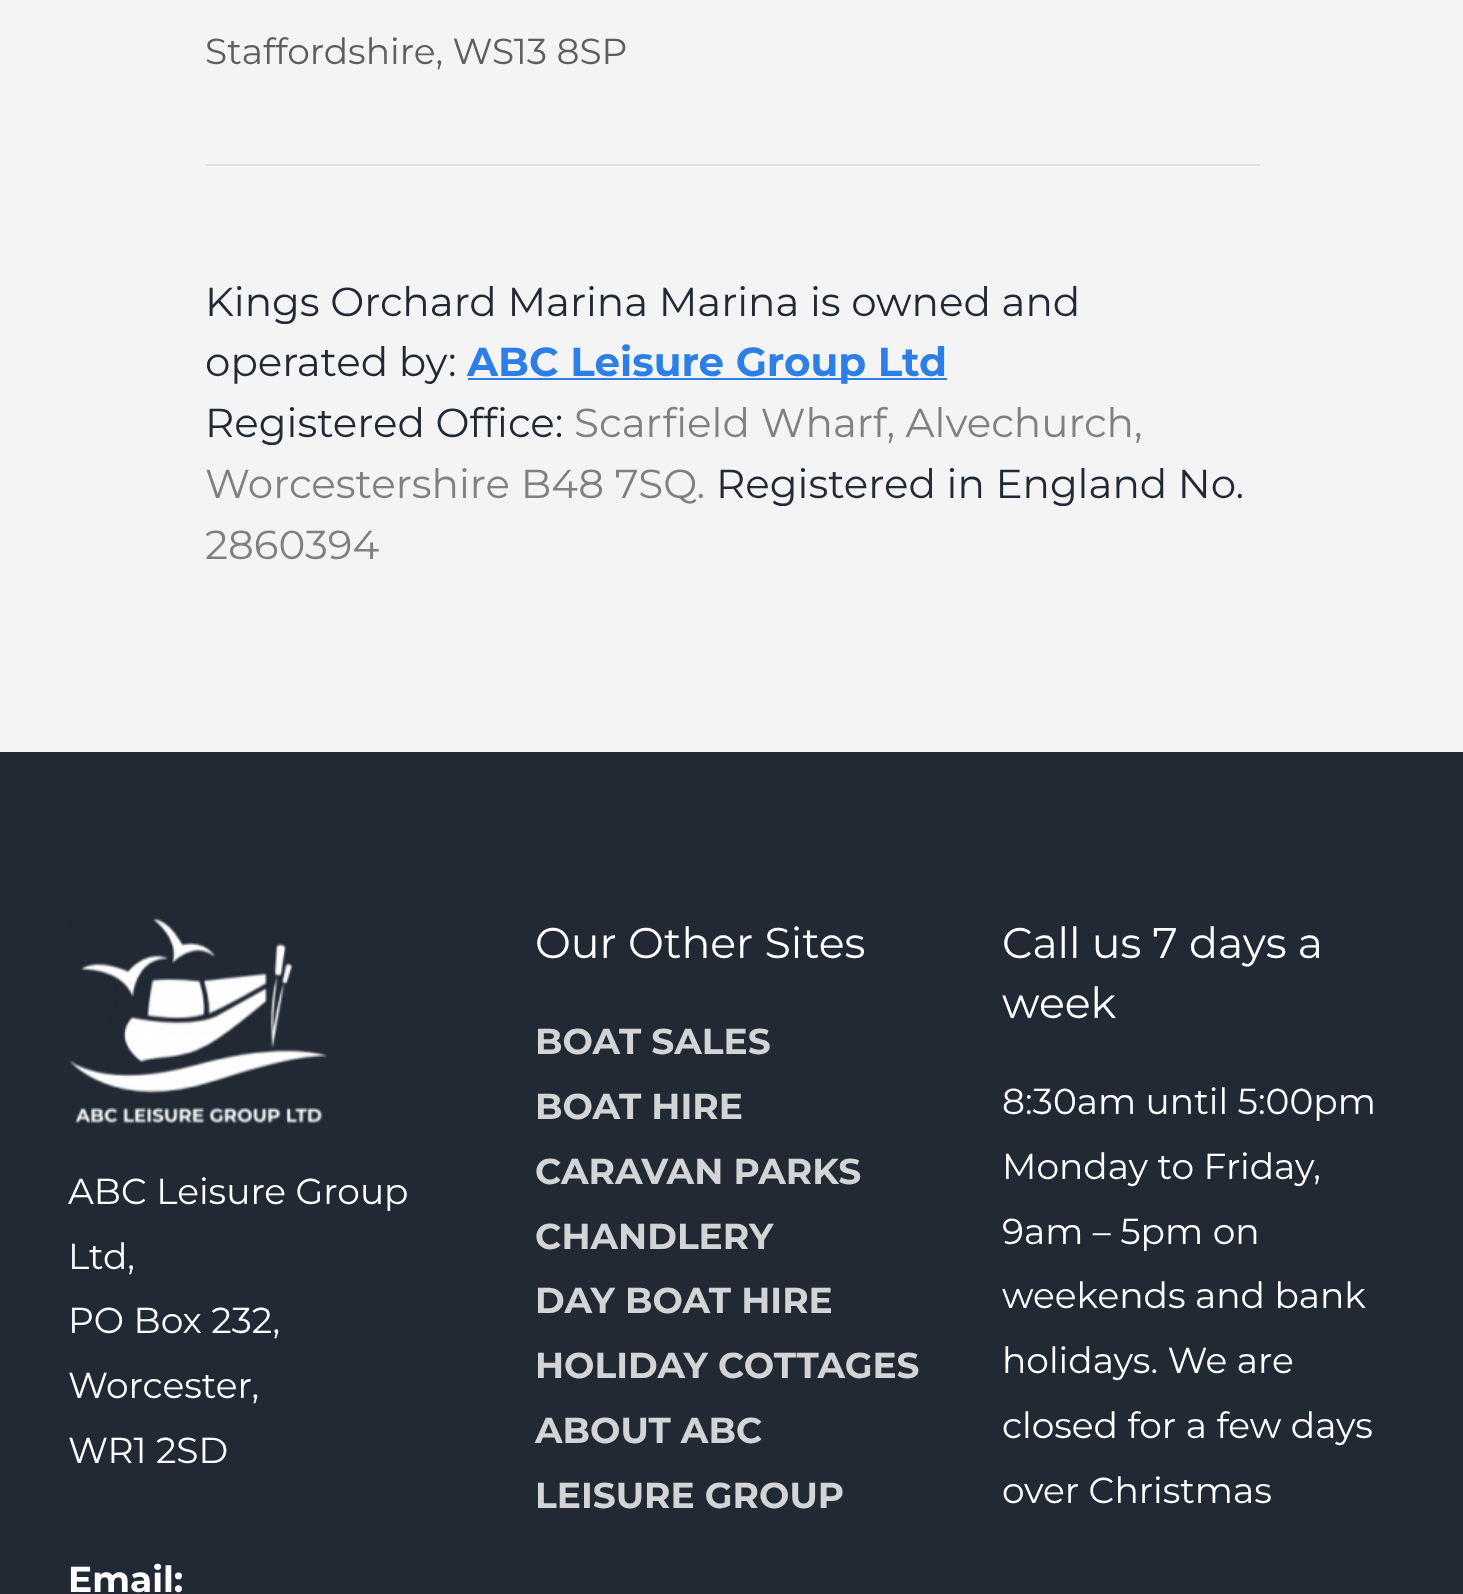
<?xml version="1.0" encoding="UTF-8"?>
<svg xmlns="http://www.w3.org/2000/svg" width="1463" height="1594">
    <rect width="100%" height="100%" fill="#F4F4F4"/>
    <text x="205" y="64" font-family="Montserrat" font-size="36" fill="#5E5E5E">Staffordshire, WS13 8SP</text>
    <rect x="205" y="164" width="1055" height="2" fill="#E2E2E2"/>
    <text font-family="Montserrat" font-size="40.5" fill="#212934">
        <tspan x="205" y="316">Kings Orchard Marina Marina is owned and</tspan>
        <tspan x="205" y="376">operated by:</tspan>
    </text>
    <rect x="468" y="378" width="479" height="2" fill="#2C7FE6"/>
    <text x="467" y="376" font-family="Montserrat" font-size="40.5" font-weight="700" fill="#2C7FE6">ABC Leisure Group Ltd</text>
    <text x="205" y="437" font-family="Montserrat" font-size="40.5" fill="#212934">Registered Office:</text>
    <text x="574" y="437" font-family="Montserrat" font-size="40.5" fill="#808080">Scarfield Wharf, Alvechurch,</text>
    <text x="205" y="498" font-family="Montserrat" font-size="40.5" fill="#808080">Worcestershire B48 7SQ.</text>
    <text x="716" y="498" font-family="Montserrat" font-size="40.5" fill="#212934">Registered in England No.</text>
    <text x="205" y="559" font-family="Montserrat" font-size="40.5" fill="#808080">2860394</text>
    <rect x="0" y="752" width="1463" height="842" fill="#212934"/>
    <image x="69" y="918" width="259" height="206" href="img_01.png"/>
    <text font-family="Montserrat" font-size="36" fill="#FFFFFF">
        <tspan x="68" y="1204">ABC Leisure Group</tspan>
        <tspan x="68" y="1269">Ltd,</tspan>
        <tspan x="68" y="1333">PO Box 232,</tspan>
        <tspan x="68" y="1398">Worcester,</tspan>
        <tspan x="68" y="1463">WR1 2SD</tspan>
    </text>
    <text x="68" y="1592" font-family="Montserrat" font-size="36" font-weight="700" fill="#FFFFFF">Email:</text>
    <text x="535" y="958" font-family="Montserrat" font-size="42.75" fill="#FFFFFF">Our Other Sites</text>
    <text font-family="Montserrat" font-size="36" font-weight="700" fill="#D3D4D6">
        <tspan x="535" y="1054">BOAT SALES</tspan>
        <tspan x="535" y="1119">BOAT HIRE</tspan>
        <tspan x="535" y="1184">CARAVAN PARKS</tspan>
        <tspan x="535" y="1249">CHANDLERY</tspan>
        <tspan x="535" y="1313">DAY BOAT HIRE</tspan>
        <tspan x="535" y="1378">HOLIDAY COTTAGES</tspan>
        <tspan x="535" y="1443">ABOUT ABC</tspan>
        <tspan x="535" y="1508">LEISURE GROUP</tspan>
    </text>
    <text font-family="Montserrat" font-size="42.75" fill="#FFFFFF">
        <tspan x="1002" y="958">Call us 7 days a</tspan>
        <tspan x="1002" y="1018">week</tspan>
    </text>
    <text font-family="Montserrat" font-size="36" fill="#FFFFFF">
        <tspan x="1002" y="1114">8:30am until 5:00pm</tspan>
        <tspan x="1002" y="1179">Monday to Friday,</tspan>
        <tspan x="1002" y="1244">9am – 5pm on</tspan>
        <tspan x="1002" y="1308">weekends and bank</tspan>
        <tspan x="1002" y="1373">holidays. We are</tspan>
        <tspan x="1002" y="1438">closed for a few days</tspan>
        <tspan x="1002" y="1503">over Christmas</tspan>
    </text>
</svg>
